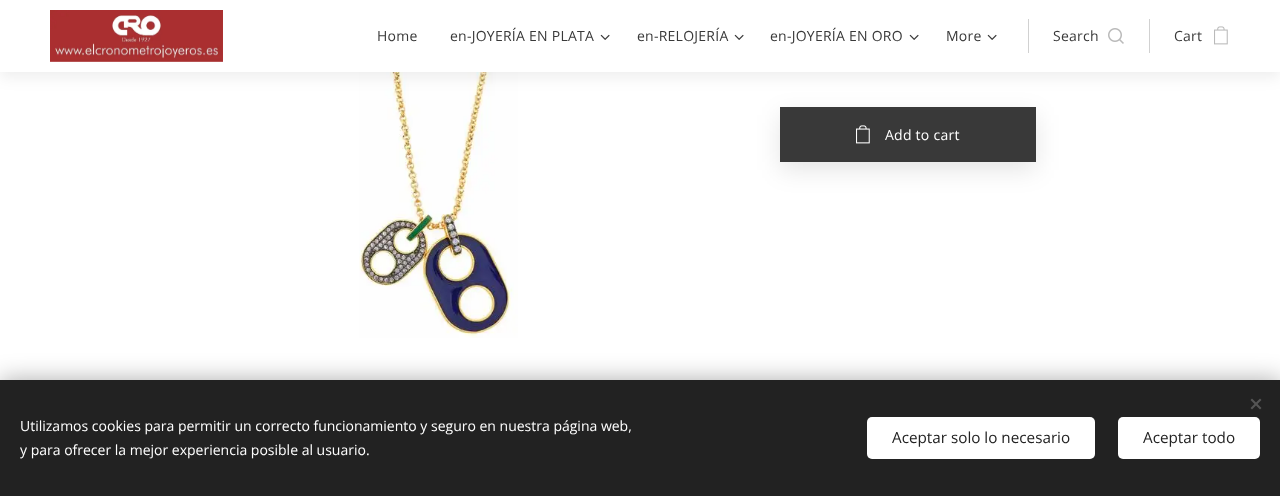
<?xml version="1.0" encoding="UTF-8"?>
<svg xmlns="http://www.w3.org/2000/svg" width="1280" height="496">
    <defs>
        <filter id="blur1" x="-50%" y="-200%" width="200%" height="500%"><feGaussianBlur stdDeviation="7.5"/></filter>
        <filter id="blur2" x="-50%" y="-200%" width="200%" height="500%"><feGaussianBlur stdDeviation="12.5"/></filter>
    </defs>
    <rect width="100%" height="100%" fill="#FFFFFF"/>
    <image x="359" y="72" width="159" height="266" href="img_05.png"/>
    <rect x="0" y="5" width="1280" height="72" fill="#000000" fill-opacity="0.07" filter="url(#blur1)"/>
    <rect x="0" y="0" width="1280" height="72" fill="#FFFFFF"/>
    <image x="50" y="10" width="173" height="52" href="img_01.png"/>
    <text x="377" y="41" font-family="Open Sans" font-size="14" letter-spacing="0.25" fill="#393939">Home</text>
    <text x="450" y="41" font-family="Open Sans" font-size="14" letter-spacing="0.25" fill="#393939">en-JOYERÍA EN PLATA</text>
    <image x="600" y="34" width="10" height="6" href="img_02.png"/>
    <text x="637" y="41" font-family="Open Sans" font-size="14" letter-spacing="0.25" fill="#393939">en-RELOJERÍA</text>
    <image x="734" y="34" width="10" height="6" href="img_02.png"/>
    <text x="770" y="41" font-family="Open Sans" font-size="14" letter-spacing="0.25" fill="#393939">en-JOYERÍA EN ORO</text>
    <image x="909" y="34" width="10" height="6" href="img_02.png"/>
    <text x="946" y="41" font-family="Open Sans" font-size="14" letter-spacing="0.25" fill="#393939">More</text>
    <image x="987" y="34" width="10" height="6" href="img_02.png"/>
    <rect x="1028" y="19" width="1" height="34" fill="#D1D1D1"/>
    <text x="1053" y="41" font-family="Open Sans" font-size="14" letter-spacing="0.25" fill="#393939">Search</text>
    <image x="1108" y="28" width="16" height="16" href="img_03.png"/>
    <rect x="1149" y="19" width="1" height="34" fill="#D1D1D1"/>
    <text x="1174" y="41" font-family="Open Sans" font-size="14" letter-spacing="0.25" fill="#393939">Cart</text>
    <image x="1214" y="26" width="14" height="19" href="img_04.png"/>
    <rect x="780" y="115" width="256" height="55" fill="#000000" fill-opacity="0.1" filter="url(#blur2)"/>
    <rect x="780" y="107" width="256" height="55" fill="#393939"/>
    <image x="856" y="125" width="14" height="19" href="img_06.png"/>
    <text x="885" y="140" font-family="Open Sans" font-size="14" letter-spacing="0.25" fill="#FFFFFF">Add to cart</text>
    <rect x="0" y="380" width="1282" height="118" fill="#000000" fill-opacity="0.33" filter="url(#blur2)"/>
    <rect x="0" y="380" width="1280" height="116" fill="#222222"/>
    <path d="M 1250.5 408 L 1260 398.5 L 1261.5 400 L 1252 409.5 Z" fill="#555555"/>
    <path d="M 1252 398.5 L 1261.5 408 L 1260 409.5 L 1250.5 400 Z" fill="#555555"/>
    <text font-family="Open Sans" font-size="14" fill="#FFFFFF">
        <tspan x="20" y="431">Utilizamos cookies para permitir un correcto funcionamiento y seguro en nuestra página web,</tspan>
        <tspan x="20" y="455">y para ofrecer la mejor experiencia posible al usuario.</tspan>
    </text>
    <rect x="867" y="417" width="228" height="42" rx="5" fill="#FFFFFF"/>
    <text x="892" y="443" font-family="Open Sans" font-size="15.25" fill="#222222">Aceptar solo lo necesario</text>
    <rect x="1118" y="417" width="142" height="42" rx="5" fill="#FFFFFF"/>
    <text x="1143" y="443" font-family="Open Sans" font-size="15.25" fill="#222222">Aceptar todo</text>
</svg>
